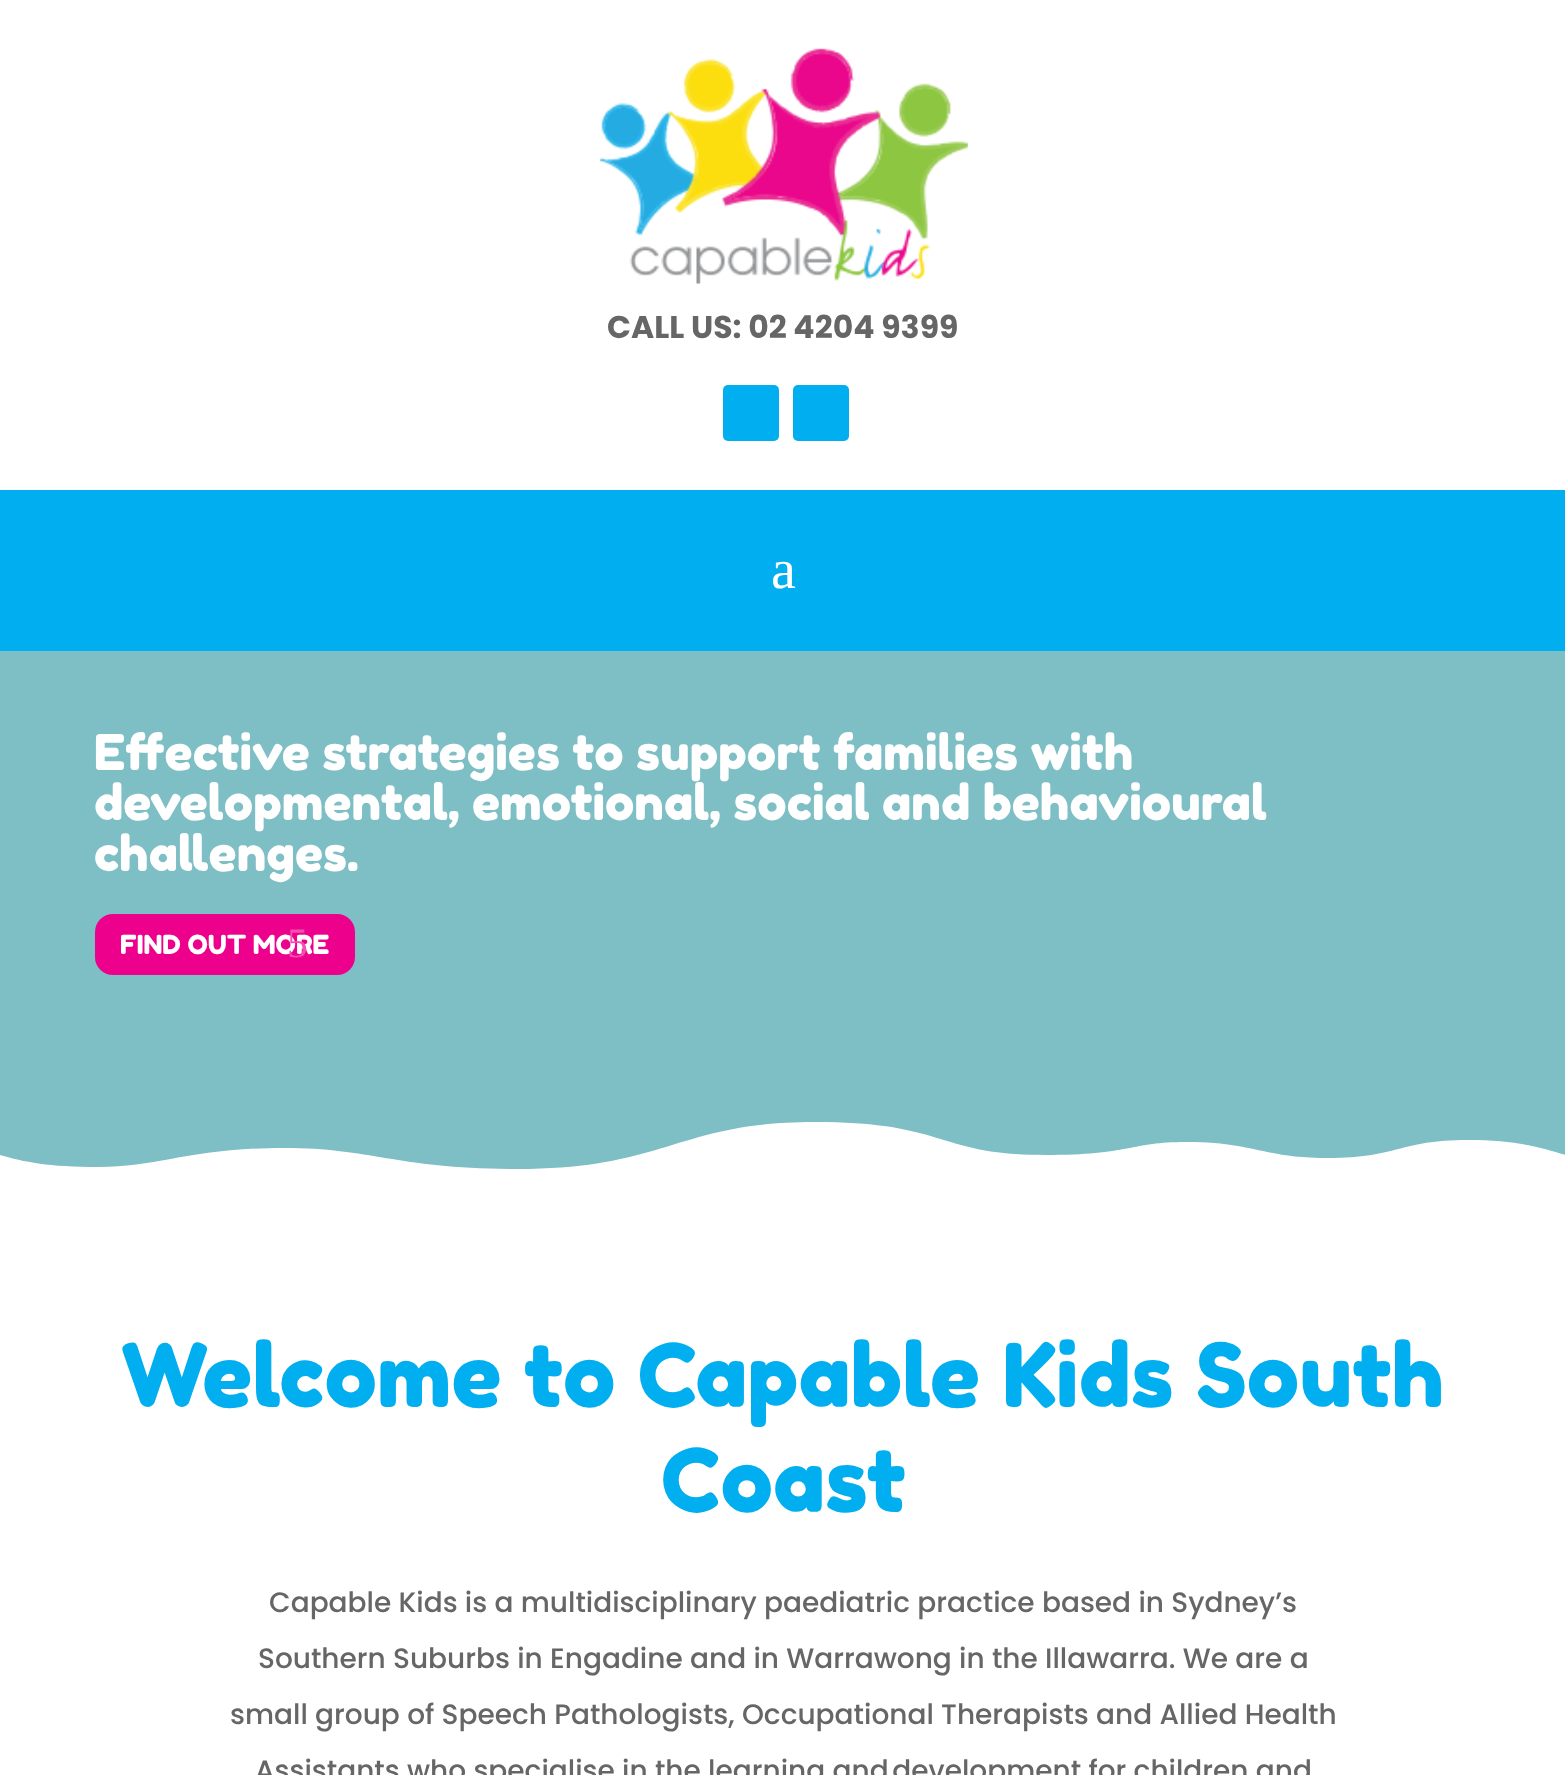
<?xml version="1.0" encoding="UTF-8"?>
<svg xmlns="http://www.w3.org/2000/svg" width="1565" height="1775">
    <rect width="100%" height="100%" fill="#FFFFFF"/>
    <image x="600" y="48" width="368" height="236" href="img_01.png"/>
    <text x="607" y="338" font-family="Poppins" font-size="31.5" font-weight="700" fill="#666666">CALL US: 02 4204 9399</text>
    <rect x="723" y="385" width="56" height="56" rx="5" fill="#01AEF0"/>
    <rect x="793" y="385" width="56" height="56" rx="5" fill="#01AEF0"/>
    <rect x="0" y="490" width="1565" height="161" fill="#01AEF0"/>
    <text x="771" y="588" font-family="Liberation Serif" font-size="56" fill="#FFFFFF">a</text>
    <rect x="0" y="651" width="1565" height="518" fill="#7EBEC5"/>
    <text font-family="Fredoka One" font-size="49" fill="#FFFFFF">
        <tspan x="94" y="770">Effective strategies to support families with</tspan>
        <tspan x="94" y="820">developmental, emotional, social and behavioural</tspan>
        <tspan x="94" y="871">challenges.</tspan>
    </text>
    <rect x="95" y="914" width="260" height="61" rx="18" fill="#ED008C"/>
    <text x="120" y="954" font-family="Fredoka One" font-size="26.25" fill="#FFFFFF">FIND OUT MORE</text>
    <text x="287" y="957" font-family="Liberation Serif" font-size="42" fill="#F34FB0">5</text>
    <path d="M 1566 1155 C 1542 1148 1517 1140 1468 1140 C 1398 1140 1399 1158 1328 1158 C 1262 1158 1255 1142 1186 1142 C 1130 1142 1131 1155 1045 1155 C 936 1155 948 1122 815 1122 C 678 1122 666 1169 518 1169 C 395 1169 374 1148 284 1148 C 189 1148 161 1167 98 1167 C 49 1167 24 1162 0 1155 V 1176 H 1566 Z" fill="#FFFFFF"/>
    <text x="121" y="1407" font-family="Fredoka One" font-size="87.5" fill="#01AEF0">Welcome to Capable Kids South</text>
    <text x="661" y="1512" font-family="Fredoka One" font-size="87.5" fill="#01AEF0">Coast</text>
    <text x="269" y="1612" font-family="Poppins" font-size="28" font-weight="500" fill="#666666">Capable Kids is a multidisciplinary paediatric practice based in Sydney’s</text>
    <text x="258" y="1668" font-family="Poppins" font-size="28" font-weight="500" fill="#666666">Southern Suburbs in Engadine and in Warrawong in the Illawarra. We are a</text>
    <text x="230" y="1724" font-family="Poppins" font-size="28" font-weight="500" fill="#666666">small group of Speech Pathologists, Occupational Therapists and Allied Health</text>
    <text x="255" y="1780" font-family="Poppins" font-size="28" font-weight="500" fill="#666666">Assistants who specialise in the learning and development for children and</text>
</svg>
